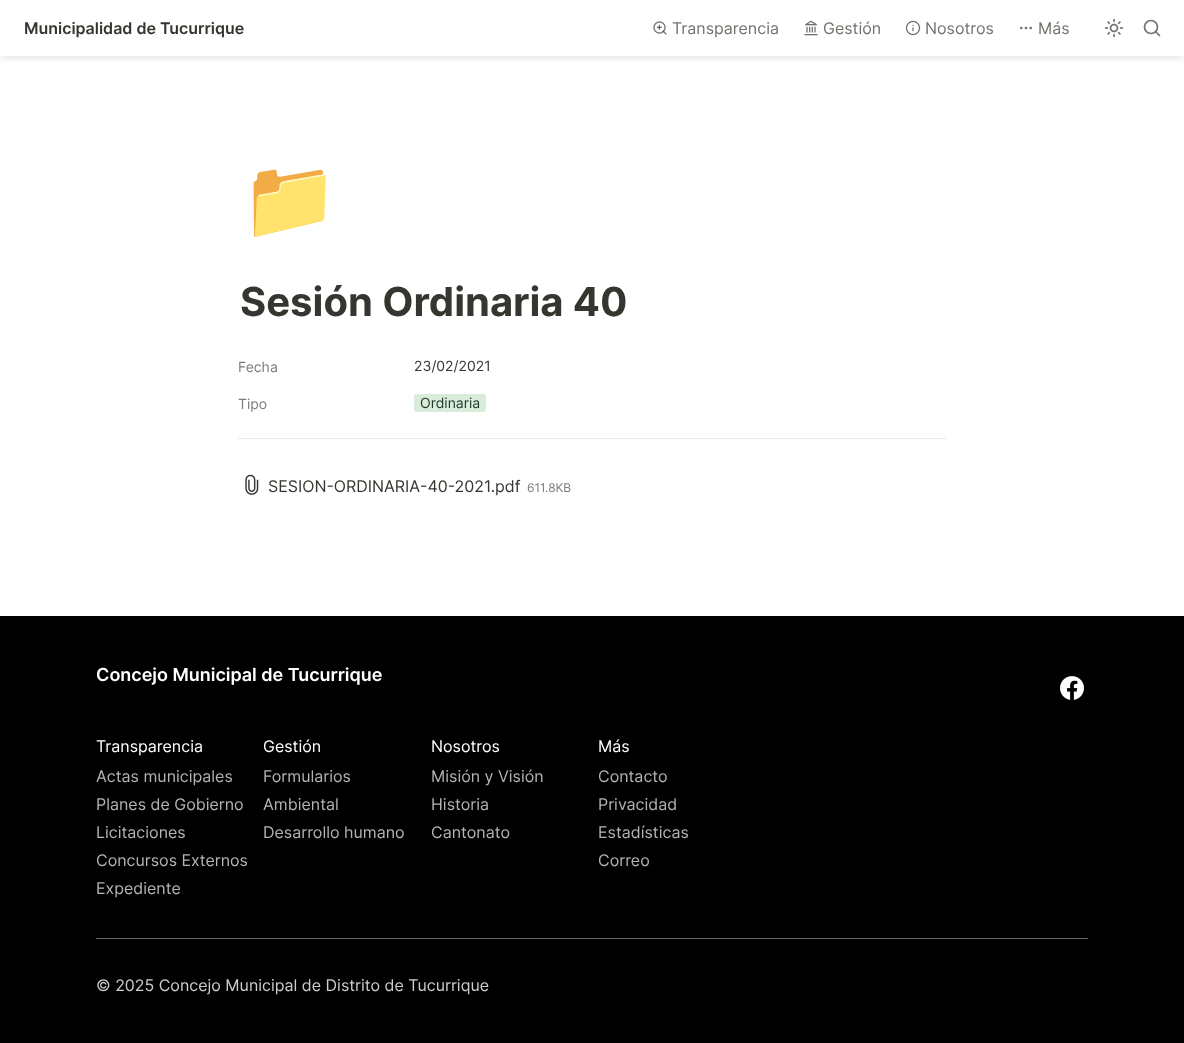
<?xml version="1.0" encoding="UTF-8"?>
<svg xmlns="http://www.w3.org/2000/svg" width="1184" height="1043">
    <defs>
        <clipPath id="clip1"><rect x="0" y="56" width="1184" height="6"/></clipPath>
        <filter id="blur1" x="-50%" y="-200%" width="200%" height="500%"><feGaussianBlur stdDeviation="4"/></filter>
    </defs>
    <rect width="100%" height="100%" fill="#FFFFFF"/>
    <g clip-path="url(#clip1)">
        <rect x="2" y="6" width="1180" height="52" fill="#000000" fill-opacity="0.12" filter="url(#blur1)"/>
    </g>
    <text x="24" y="34" font-family="Inter" font-size="16" font-weight="600" fill="#37352F">Municipalidad de Tucurrique</text>
    <image x="653" y="21" width="14" height="14" href="img_01.png"/>
    <text x="672" y="34" font-family="Inter" font-size="16" fill="#73726D">Transparencia</text>
    <image x="804" y="20" width="14" height="16" href="img_02.png"/>
    <text x="823" y="34" font-family="Inter" font-size="16" fill="#73726D">Gestión</text>
    <image x="905" y="20" width="16" height="16" href="img_03.png"/>
    <text x="925" y="34" font-family="Inter" font-size="16" fill="#73726D">Nosotros</text>
    <circle cx="1026" cy="28" r="0.7" fill="none" stroke="#73726D" stroke-width="1.3"/>
    <circle cx="1030.7" cy="28" r="0.7" fill="none" stroke="#73726D" stroke-width="1.3"/>
    <circle cx="1021.3" cy="28" r="0.7" fill="none" stroke="#73726D" stroke-width="1.3"/>
    <text x="1038" y="34" font-family="Inter" font-size="16" fill="#73726D">Más</text>
    <image x="1104" y="18" width="20" height="20" href="img_04.png"/>
    <circle cx="1151" cy="27" r="6.5" fill="none" stroke="#73726D" stroke-width="1.7"/>
    <path d="M 1159.5 35.5 L 1156 32" fill="none" stroke="#73726D" stroke-width="1.7" stroke-linecap="round" stroke-linejoin="round"/>
    <text x="241" y="226" font-family="Noto Color Emoji" font-size="78" fill="#37352F">📁</text>
    <text x="240" y="316" font-family="Inter" font-size="40" font-weight="700" fill="#37352F">Sesión Ordinaria 40</text>
    <text x="238" y="372" font-family="Inter" font-size="14" fill="#7D7C78">Fecha</text>
    <text x="414" y="371" font-family="Inter" font-size="14" fill="#37352F">23/02/2021</text>
    <text x="238" y="409" font-family="Inter" font-size="14" fill="#7D7C78">Tipo</text>
    <rect x="414" y="394" width="72" height="18" rx="3" fill="#D9ECDA"/>
    <text x="420" y="408" font-family="Inter" font-size="14" fill="#1E392A">Ordinaria</text>
    <rect x="238" y="438" width="708" height="1" fill="#E9E9E7"/>
    <image x="245" y="474" width="14" height="21" href="img_05.png"/>
    <text x="268" y="492" font-family="Inter" font-size="16" fill="#37352F">SESION-ORDINARIA-40-2021.pdf</text>
    <text x="527" y="492" font-family="Inter" font-size="12" fill="#7D7C78">611.8KB</text>
    <rect x="0" y="616" width="1184" height="427" fill="#000000"/>
    <text x="96" y="681" font-family="Inter" font-size="18" font-weight="600" fill="#FFFFFF">Concejo Municipal de Tucurrique</text>
    <image x="1060" y="676" width="24" height="24" href="img_06.png"/>
    <text x="96" y="752" font-family="Inter" font-size="16" fill="#FFFFFF">Transparencia</text>
    <text font-family="Inter" font-size="16" fill="#B3B3B3">
        <tspan x="96" y="782">Actas municipales</tspan>
        <tspan x="96" y="810">Planes de Gobierno</tspan>
        <tspan x="96" y="838">Licitaciones</tspan>
        <tspan x="96" y="866">Concursos Externos</tspan>
        <tspan x="96" y="894">Expediente</tspan>
    </text>
    <text x="263" y="752" font-family="Inter" font-size="16" fill="#FFFFFF">Gestión</text>
    <text font-family="Inter" font-size="16" fill="#B3B3B3">
        <tspan x="263" y="782">Formularios</tspan>
        <tspan x="263" y="810">Ambiental</tspan>
        <tspan x="263" y="838">Desarrollo humano</tspan>
    </text>
    <text x="431" y="752" font-family="Inter" font-size="16" fill="#FFFFFF">Nosotros</text>
    <text font-family="Inter" font-size="16" fill="#B3B3B3">
        <tspan x="431" y="782">Misión y Visión</tspan>
        <tspan x="431" y="810">Historia</tspan>
        <tspan x="431" y="838">Cantonato</tspan>
    </text>
    <text x="598" y="752" font-family="Inter" font-size="16" fill="#FFFFFF">Más</text>
    <text font-family="Inter" font-size="16" fill="#B3B3B3">
        <tspan x="598" y="782">Contacto</tspan>
        <tspan x="598" y="810">Privacidad</tspan>
        <tspan x="598" y="838">Estadísticas</tspan>
        <tspan x="598" y="866">Correo</tspan>
    </text>
    <rect x="96" y="938" width="992" height="1" fill="#666666"/>
    <text x="96" y="991" font-family="Inter" font-size="16" fill="#CCCCCC">© 2025 Concejo Municipal de Distrito de Tucurrique</text>
</svg>
